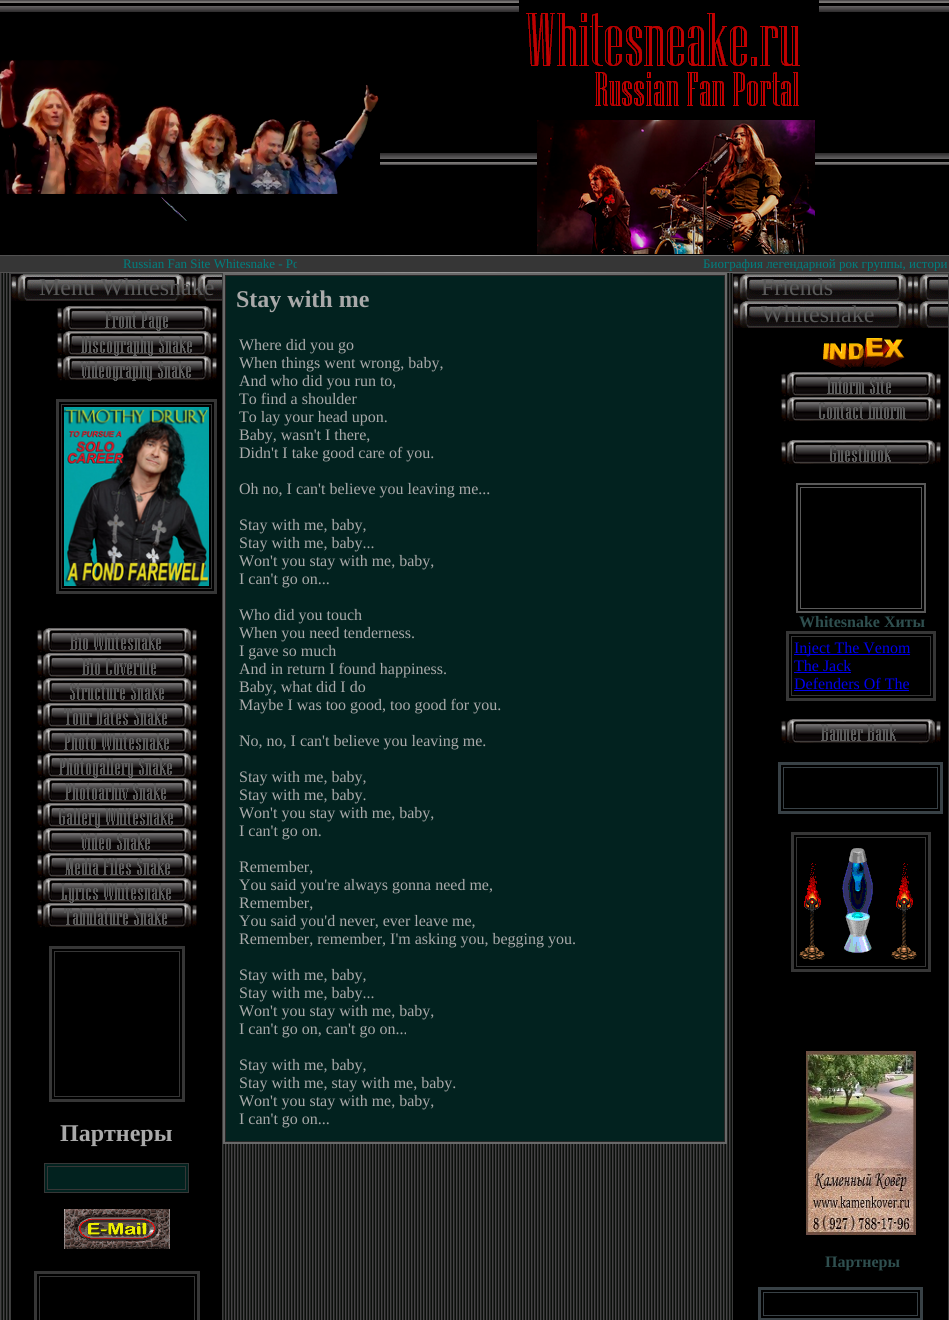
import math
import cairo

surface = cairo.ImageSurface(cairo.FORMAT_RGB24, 949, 1320)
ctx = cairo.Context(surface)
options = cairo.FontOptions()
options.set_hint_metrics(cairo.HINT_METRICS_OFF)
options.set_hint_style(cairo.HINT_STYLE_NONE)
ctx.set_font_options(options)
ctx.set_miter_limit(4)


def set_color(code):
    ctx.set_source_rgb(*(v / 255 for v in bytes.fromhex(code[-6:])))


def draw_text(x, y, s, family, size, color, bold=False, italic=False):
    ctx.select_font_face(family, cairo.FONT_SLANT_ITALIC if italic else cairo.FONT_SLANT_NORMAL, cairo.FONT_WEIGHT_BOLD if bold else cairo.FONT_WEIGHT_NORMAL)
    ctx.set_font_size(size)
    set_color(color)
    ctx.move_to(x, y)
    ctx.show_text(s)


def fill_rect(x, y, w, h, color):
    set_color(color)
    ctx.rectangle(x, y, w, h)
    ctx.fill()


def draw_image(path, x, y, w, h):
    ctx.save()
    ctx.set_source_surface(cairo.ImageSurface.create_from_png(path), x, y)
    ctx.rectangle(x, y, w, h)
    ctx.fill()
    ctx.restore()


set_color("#ffffff")
ctx.paint()
draw_image("assets/img1.png", 0, 273, 732, 1047)
fill_rect(0, 165, 949, 90, "#000000")
draw_image("assets/img2.png", 0, 0, 949, 165)
draw_image("assets/img3.png", 0, 60, 380, 134)
draw_image("assets/img4.png", 519, 0, 300, 106)
draw_image("assets/img5.png", 537, 120, 278, 134)
draw_image("assets/img6.png", 161, 197, 26, 24)
draw_image("assets/img7.png", 0, 255, 949, 18)
fill_rect(0, 256, 949, 16, "#363636")
ctx.save()
ctx.rectangle(0, 256, 297, 16)
ctx.clip()
draw_text(123, 268, "Russian Fan Site Whitesnake - Ро", "Liberation Serif", 13, "#008080")
ctx.restore()
draw_text(703, 268, "Биография легендарной рок группы, истори", "Liberation Serif", 13, "#008080")
ctx.rectangle(10.5, 273.5, 212, 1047)
set_color("#3c3c3c")
ctx.set_line_width(1)
ctx.stroke()
draw_image("assets/img8.png", 11, 274, 211, 27)
draw_text(39, 295, "Menu Whitesnake", "Liberation Serif", 24, "#595959")
fill_rect(11, 301, 211, 1019, "#000000")
draw_image("assets/img9.png", 57, 306, 160, 25)
draw_image("assets/img10.png", 57, 331, 160, 25)
draw_image("assets/img11.png", 57, 356, 160, 25)
ctx.rectangle(57.5, 400.5, 158, 192)
set_color("#363636")
ctx.set_line_width(3)
ctx.stroke()
ctx.rectangle(61.5, 404.5, 150, 184)
ctx.set_line_width(1)
ctx.stroke()
draw_image("assets/img12.png", 64, 407, 145, 179)
draw_image("assets/img13.png", 37, 628, 160, 25)
draw_image("assets/img14.png", 37, 653, 160, 25)
draw_image("assets/img15.png", 37, 678, 160, 25)
draw_image("assets/img16.png", 37, 703, 160, 25)
draw_image("assets/img17.png", 37, 728, 160, 25)
draw_image("assets/img18.png", 37, 753, 160, 25)
draw_image("assets/img19.png", 37, 778, 160, 25)
draw_image("assets/img20.png", 37, 803, 160, 25)
draw_image("assets/img21.png", 37, 828, 160, 25)
draw_image("assets/img22.png", 37, 853, 160, 25)
draw_image("assets/img23.png", 37, 878, 160, 25)
draw_image("assets/img24.png", 37, 903, 160, 25)
ctx.rectangle(50.5, 947.5, 133, 153)
ctx.set_line_width(3)
ctx.stroke()
ctx.rectangle(54.5, 951.5, 125, 145)
ctx.set_line_width(1)
ctx.stroke()
draw_text(60, 1141, "Партнеры", "Liberation Serif", 24, "#a9a9a9", bold=True)
set_color("#02221f")
ctx.rectangle(44.5, 1163.5, 144, 29)
ctx.fill_preserve()
set_color("#363636")
ctx.stroke()
ctx.rectangle(47.5, 1166.5, 138, 23)
ctx.stroke()
draw_image("assets/img25.png", 64, 1209, 106, 40)
ctx.rectangle(35.5, 1272.5, 163, 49)
ctx.set_line_width(3)
ctx.stroke()
ctx.rectangle(39.5, 1276.5, 155, 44)
ctx.set_line_width(1)
ctx.stroke()
ctx.rectangle(224, 274, 502, 869)
set_color("#696969")
ctx.set_line_width(2)
ctx.stroke()
set_color("#02221f")
ctx.rectangle(225.5, 275.5, 499, 866)
ctx.fill_preserve()
set_color("#262626")
ctx.set_line_width(1)
ctx.stroke()
draw_text(236, 307, "Stay with me", "Liberation Serif", 24, "#a9a9a9", bold=True)
draw_text(239, 350, "Where did you go", "Liberation Serif", 16, "#a9a9a9")
draw_text(239, 368, "When things went wrong, baby,", "Liberation Serif", 16, "#a9a9a9")
draw_text(239, 386, "And who did you run to,", "Liberation Serif", 16, "#a9a9a9")
draw_text(239, 404, "To find a shoulder", "Liberation Serif", 16, "#a9a9a9")
draw_text(239, 422, "To lay your head upon.", "Liberation Serif", 16, "#a9a9a9")
draw_text(239, 440, "Baby, wasn't I there,", "Liberation Serif", 16, "#a9a9a9")
draw_text(239, 458, "Didn't I take good care of you.", "Liberation Serif", 16, "#a9a9a9")
draw_text(239, 494, "Oh no, I can't believe you leaving me...", "Liberation Serif", 16, "#a9a9a9")
draw_text(239, 530, "Stay with me, baby,", "Liberation Serif", 16, "#a9a9a9")
draw_text(239, 548, "Stay with me, baby...", "Liberation Serif", 16, "#a9a9a9")
draw_text(239, 566, "Won't you stay with me, baby,", "Liberation Serif", 16, "#a9a9a9")
draw_text(239, 584, "I can't go on...", "Liberation Serif", 16, "#a9a9a9")
draw_text(239, 620, "Who did you touch", "Liberation Serif", 16, "#a9a9a9")
draw_text(239, 638, "When you need tenderness.", "Liberation Serif", 16, "#a9a9a9")
draw_text(239, 656, "I gave so much", "Liberation Serif", 16, "#a9a9a9")
draw_text(239, 674, "And in return I found happiness.", "Liberation Serif", 16, "#a9a9a9")
draw_text(239, 692, "Baby, what did I do", "Liberation Serif", 16, "#a9a9a9")
draw_text(239, 710, "Maybe I was too good, too good for you.", "Liberation Serif", 16, "#a9a9a9")
draw_text(239, 746, "No, no, I can't believe you leaving me.", "Liberation Serif", 16, "#a9a9a9")
draw_text(239, 782, "Stay with me, baby,", "Liberation Serif", 16, "#a9a9a9")
draw_text(239, 800, "Stay with me, baby.", "Liberation Serif", 16, "#a9a9a9")
draw_text(239, 818, "Won't you stay with me, baby,", "Liberation Serif", 16, "#a9a9a9")
draw_text(239, 836, "I can't go on.", "Liberation Serif", 16, "#a9a9a9")
draw_text(239, 872, "Remember,", "Liberation Serif", 16, "#a9a9a9")
draw_text(239, 890, "You said you're always gonna need me,", "Liberation Serif", 16, "#a9a9a9")
draw_text(239, 908, "Remember,", "Liberation Serif", 16, "#a9a9a9")
draw_text(239, 926, "You said you'd never, ever leave me,", "Liberation Serif", 16, "#a9a9a9")
draw_text(239, 944, "Remember, remember, I'm asking you, begging you.", "Liberation Serif", 16, "#a9a9a9")
draw_text(239, 980, "Stay with me, baby,", "Liberation Serif", 16, "#a9a9a9")
draw_text(239, 998, "Stay with me, baby...", "Liberation Serif", 16, "#a9a9a9")
draw_text(239, 1016, "Won't you stay with me, baby,", "Liberation Serif", 16, "#a9a9a9")
draw_text(239, 1034, "I can't go on, can't go on...", "Liberation Serif", 16, "#a9a9a9")
draw_text(239, 1070, "Stay with me, baby,", "Liberation Serif", 16, "#a9a9a9")
draw_text(239, 1088, "Stay with me, stay with me, baby.", "Liberation Serif", 16, "#a9a9a9")
draw_text(239, 1106, "Won't you stay with me, baby,", "Liberation Serif", 16, "#a9a9a9")
draw_text(239, 1124, "I can't go on...", "Liberation Serif", 16, "#a9a9a9")
ctx.rectangle(732.5, 273.5, 216, 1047)
set_color("#3c3c3c")
ctx.stroke()
draw_image("assets/img26.png", 733, 274, 215, 54)
draw_text(761, 295, "Friends", "Liberation Serif", 24, "#595959")
draw_text(761, 322, "Whitesnake", "Liberation Serif", 24, "#595959")
fill_rect(733, 328, 215, 992, "#000000")
draw_image("assets/img27.png", 823, 338, 82, 30)
draw_image("assets/img28.png", 781, 372, 160, 25)
draw_image("assets/img29.png", 781, 397, 160, 25)
draw_image("assets/img30.png", 781, 440, 160, 25)
ctx.rectangle(797, 484, 128, 128)
set_color("#595959")
ctx.set_line_width(2)
ctx.stroke()
ctx.rectangle(800.5, 487.5, 121, 121)
ctx.set_line_width(1)
ctx.stroke()
draw_text(799, 627, "Whitesnake Хиты", "Liberation Serif", 16, "#2f4f4f", bold=True)
ctx.rectangle(787.5, 632.5, 147, 67)
set_color("#363636")
ctx.set_line_width(3)
ctx.stroke()
ctx.rectangle(791.5, 636.5, 139, 59)
ctx.set_line_width(1)
ctx.stroke()
fill_rect(794, 654, 116, 1, "#0000ee")
draw_text(794, 653, "Inject The Venom", "Liberation Serif", 16, "#0000ee")
draw_text(794, 671, "The Jack", "Liberation Serif", 16, "#0000ee")
fill_rect(794, 672, 57, 1, "#0000ee")
draw_text(794, 689, "Defenders Of The", "Liberation Serif", 16, "#0000ee")
fill_rect(794, 690, 115, 1, "#0000ee")
draw_image("assets/img31.png", 781, 719, 160, 25)
ctx.rectangle(779.5, 763.5, 162, 49)
set_color("#384146")
ctx.set_line_width(3)
ctx.stroke()
ctx.rectangle(783.5, 767.5, 154, 41)
ctx.set_line_width(1)
ctx.stroke()
ctx.rectangle(792.5, 833.5, 137, 137)
set_color("#363636")
ctx.set_line_width(3)
ctx.stroke()
ctx.rectangle(796.5, 837.5, 129, 129)
ctx.set_line_width(1)
ctx.stroke()
draw_image("assets/img32.png", 799, 863, 26, 97)
draw_image("assets/img33.png", 842, 848, 31, 105)
draw_image("assets/img32.png", 891, 863, 26, 97)
draw_image("assets/img34.png", 806, 1051, 110, 184)
draw_text(825, 1267, "Партнеры", "Liberation Serif", 16, "#2f4f4f", bold=True)
ctx.rectangle(759.5, 1288.5, 162, 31)
set_color("#384146")
ctx.set_line_width(3)
ctx.stroke()
ctx.rectangle(763.5, 1292.5, 154, 23)
ctx.set_line_width(1)
ctx.stroke()
surface.write_to_png("output.png")
